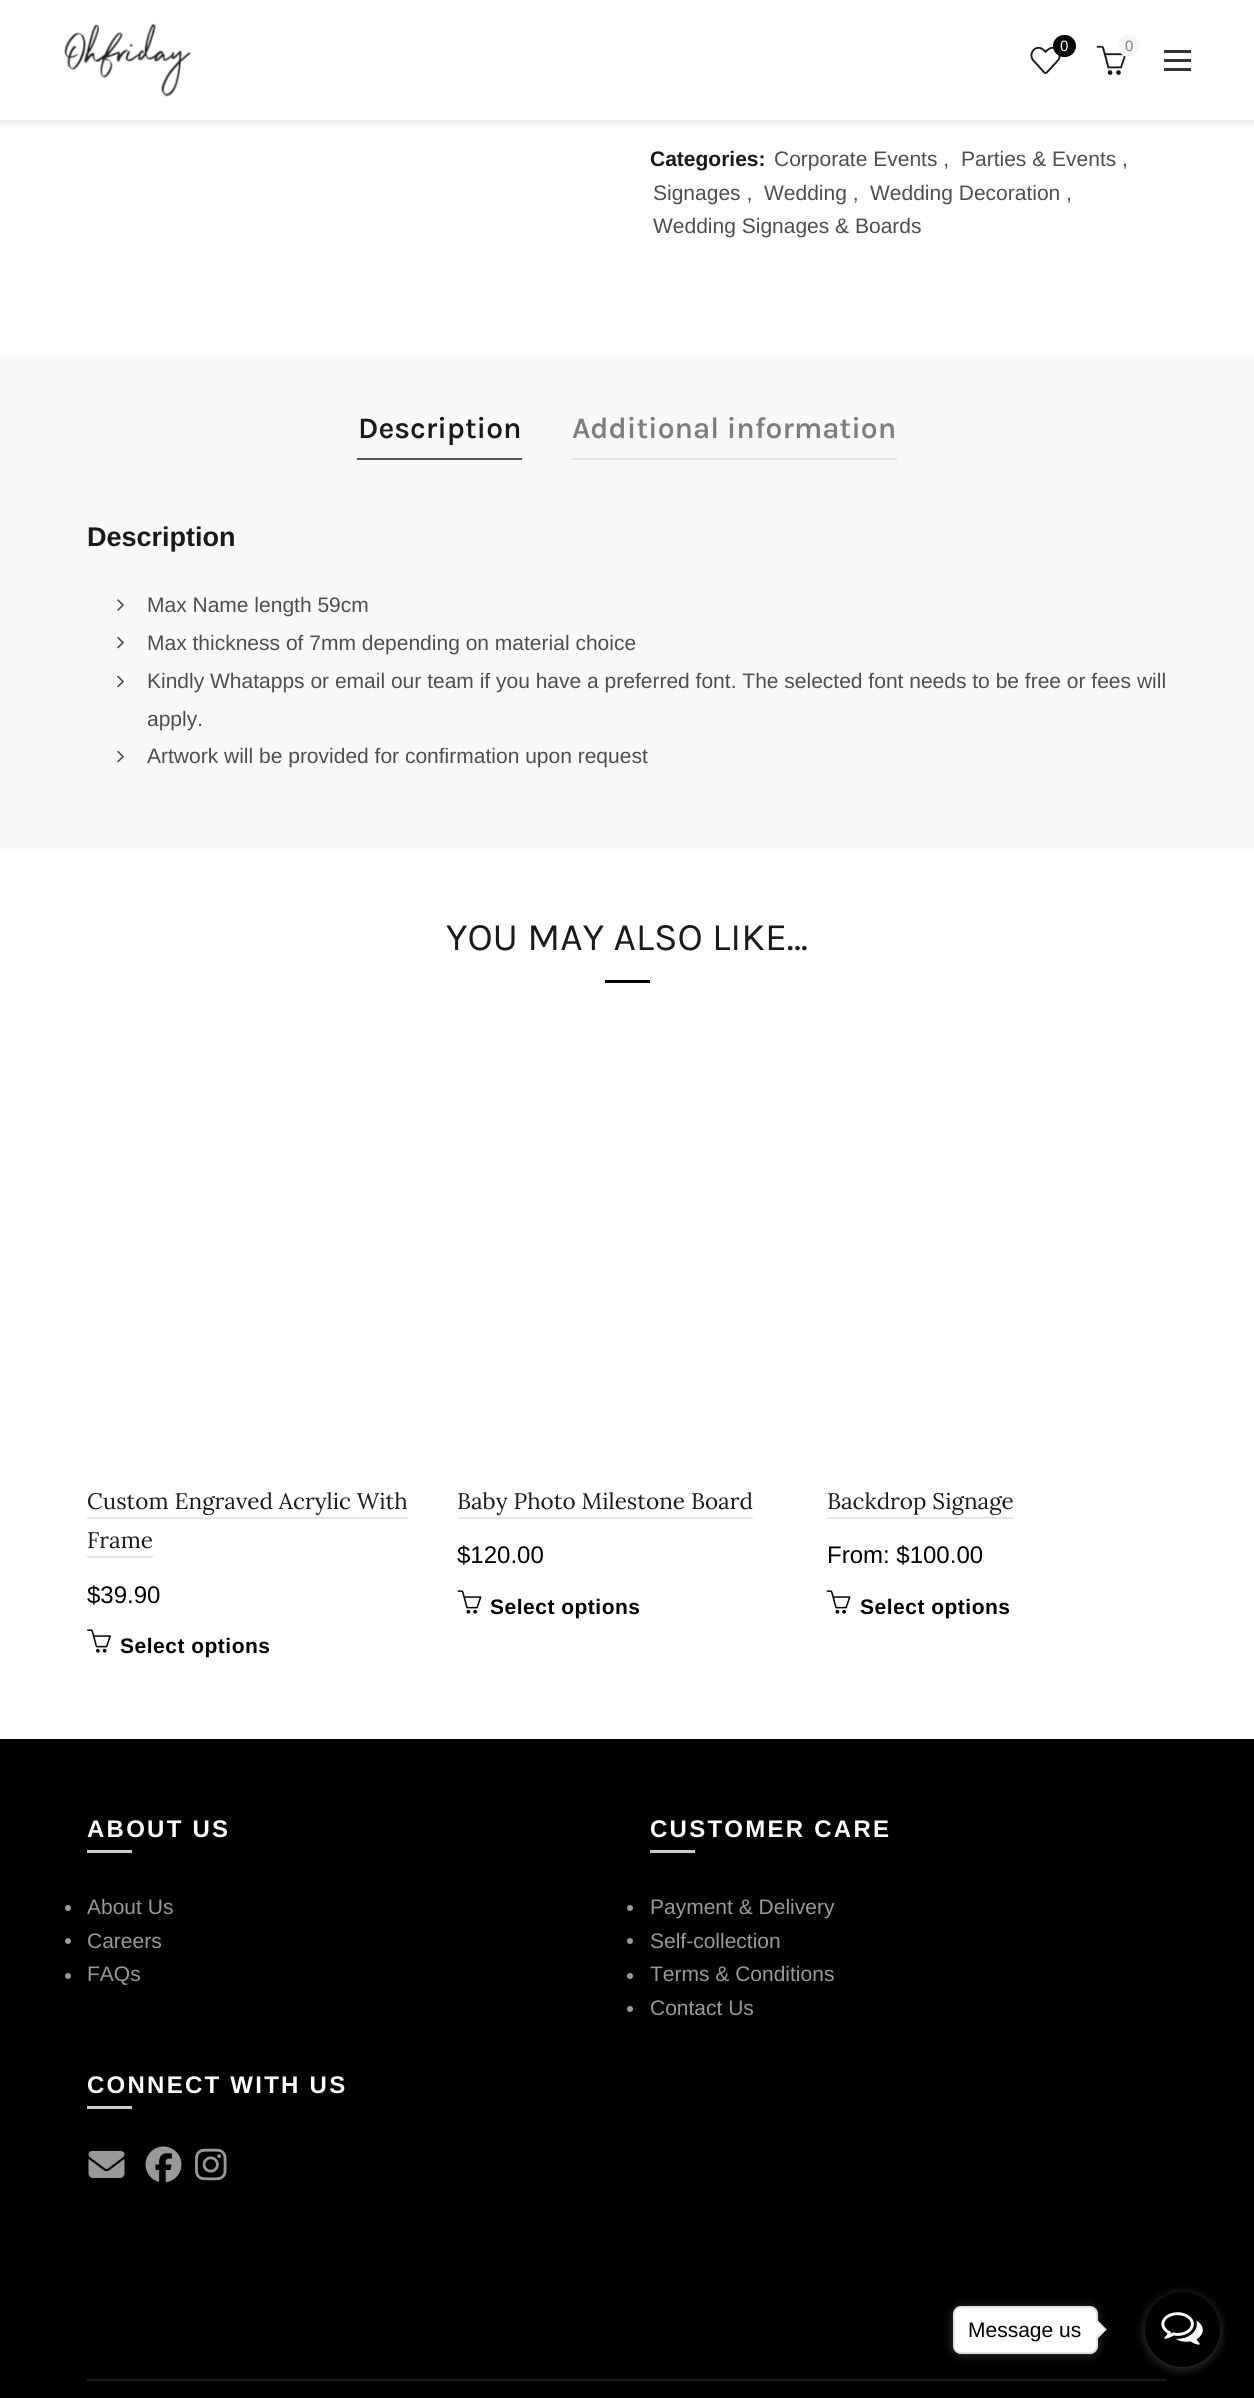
import math
import cairo

surface = cairo.ImageSurface(cairo.FORMAT_RGB24, 1254, 2398)
ctx = cairo.Context(surface)
options = cairo.FontOptions()
options.set_hint_metrics(cairo.HINT_METRICS_OFF)
options.set_hint_style(cairo.HINT_STYLE_NONE)
ctx.set_font_options(options)
ctx.set_miter_limit(4)


def set_color(code):
    ctx.set_source_rgb(*(v / 255 for v in bytes.fromhex(code[-6:])))


def draw_text(x, y, s, family, size, color, bold=False, italic=False):
    ctx.select_font_face(family, cairo.FONT_SLANT_ITALIC if italic else cairo.FONT_SLANT_NORMAL, cairo.FONT_WEIGHT_BOLD if bold else cairo.FONT_WEIGHT_NORMAL)
    ctx.set_font_size(size)
    set_color(color)
    ctx.move_to(x, y)
    ctx.show_text(s)


def draw_spaced(x, y, s, letter, word):
    ctx.move_to(x, y)
    for ch in s:
        ctx.show_text(ch)
        ctx.rel_move_to(letter + word * (ch == ' '), 0)


def fill_rect(x, y, w, h, color):
    set_color(color)
    ctx.rectangle(x, y, w, h)
    ctx.fill()


def rounded_rect(x, y, w, h, r):
    ctx.new_sub_path()
    for i, (u, v) in enumerate([(x + w - r, y + h - r), (x + r, y + h - r), (x + r, y + r), (x + w - r, y + r)]):
        ctx.arc(u, v, r, i * math.pi / 2, (i + 1) * math.pi / 2)
    ctx.close_path()


def draw_shadow(x, y, w, h, r, blur, alpha):
    ctx.push_group_with_content(cairo.CONTENT_ALPHA)
    ctx.set_operator(cairo.OPERATOR_SOURCE)
    for i in range(15, -16, -2):
        e = blur * i / 6
        if min(w, h) + 2 * e > 0:
            ctx.set_source_rgba(0, 0, 0, alpha * math.erfc((i - 1) / 8.5) / 2)
            rounded_rect(x - e, y - e, w + 2 * e, h + 2 * e, max(0, min(r + e + blur * .6, min(w, h) / 2 + e)))
            ctx.fill()
    ctx.mask(ctx.pop_group())


def draw_image(path, x, y, w, h):
    ctx.save()
    ctx.set_source_surface(cairo.ImageSurface.create_from_png(path), x, y)
    ctx.rectangle(x, y, w, h)
    ctx.fill()
    ctx.restore()


set_color("#ffffff")
ctx.paint()
set_color("#bebebe")
draw_shadow(0, 2, 1254, 120, 0, 4, 0.5)
fill_rect(0, 0, 1254, 120, "#ffffff")
draw_image("assets/img1.png", 64, 23, 127, 74)
draw_image("assets/img2.png", 1030, 46, 31, 28)
set_color("#000000")
rounded_rect(1053, 35, 23, 22, 11)
ctx.fill()
draw_text(1060, 51, "0", "Liberation Sans", 15, "#ffffff")
draw_image("assets/img3.png", 1096, 45, 30, 30)
set_color("#f7f7f7")
ctx.arc(1129, 46, 11, 0, 2 * math.pi)
ctx.fill()
draw_text(1125, 51, "0", "Liberation Sans", 15, "#7d7d7d")
fill_rect(1164, 59, 27, 3, "#333333")
fill_rect(1164, 50, 27, 3, "#333333")
fill_rect(1164, 68, 27, 3, "#333333")
draw_text(650, 166, "Categories:", "Liberation Sans", 21, "#1b1919", bold=True)
draw_text(774, 166, "Corporate Events ,", "Liberation Sans", 21, "#4e4e4e")
draw_text(961, 166, "Parties & Events ,", "Liberation Sans", 21, "#4e4e4e")
draw_text(653, 200, "Signages ,", "Liberation Sans", 21, "#4e4e4e")
draw_text(764, 200, "Wedding ,", "Liberation Sans", 21, "#4e4e4e")
draw_text(870, 200, "Wedding Decoration ,", "Liberation Sans", 21, "#4e4e4e")
draw_text(653, 233, "Wedding Signages & Boards", "Liberation Sans", 21, "#4e4e4e")
fill_rect(0, 356, 1254, 495, "#f9f9f9")
fill_rect(357, 458, 165, 2, "#545454")
draw_text(358, 438, "Description", "Karla SemiBold", 30, "#1b1919")
fill_rect(572, 458, 325, 2, "#e4e4e4")
draw_text(572, 438, "Additional information", "Karla SemiBold", 30, "#7d7d7d")
draw_text(87, 546, "Description", "Liberation Sans", 27, "#1b1919", bold=True)
draw_image("assets/img4.png", 117, 599, 7, 12)
draw_text(147, 612, "Max Name length 59cm", "Liberation Sans", 21, "#4e4e4e")
draw_image("assets/img5.png", 117, 636, 7, 13)
draw_text(147, 650, "Max thickness of 7mm depending on material choice", "Liberation Sans", 21, "#4e4e4e")
draw_image("assets/img5.png", 117, 675, 7, 13)
draw_text(147, 688, "Kindly Whatapps or email our team if you have a preferred font. The selected font needs to be free or fees will", "Liberation Sans", 21, "#4e4e4e")
draw_text(147, 726, "apply.", "Liberation Sans", 21, "#4e4e4e")
draw_image("assets/img5.png", 117, 750, 7, 13)
draw_text(147, 763, "Artwork will be provided for confirmation upon request", "Liberation Sans", 21, "#4e4e4e")
draw_text(446, 950, "YOU MAY ALSO LIKE…", "Karla", 39, "#1b1919")
fill_rect(605, 980, 45, 3, "#000000")
draw_text(87, 1509, "Custom Engraved Acrylic With", "Lora", 22.5, "#1b1919")
fill_rect(87, 1517, 321, 2, "#e6e6e6")
draw_text(87, 1548, "Frame", "Lora", 22.5, "#1b1919")
fill_rect(87, 1556, 66, 2, "#e6e6e6")
draw_text(87, 1603, "$39.90", "Liberation Sans", 24, "#000000")
draw_image("assets/img6.png", 87, 1629, 24, 24)
ctx.select_font_face("Liberation Sans", cairo.FONT_SLANT_NORMAL, cairo.FONT_WEIGHT_BOLD)
ctx.set_font_size(21)
draw_spaced(120, 1653, "Select options", 0.5, 0)
draw_text(457, 1509, "Baby Photo Milestone Board", "Lora", 22.5, "#1b1919")
fill_rect(458, 1517, 295, 2, "#e6e6e6")
draw_text(457, 1563, "$120.00", "Liberation Sans", 24, "#000000")
draw_image("assets/img7.png", 457, 1590, 25, 24)
ctx.select_font_face("Liberation Sans", cairo.FONT_SLANT_NORMAL, cairo.FONT_WEIGHT_BOLD)
ctx.set_font_size(21)
draw_spaced(490, 1614, "Select options", 0.5, 0)
draw_text(827, 1509, "Backdrop Signage", "Lora", 22.5, "#1b1919")
fill_rect(827, 1517, 187, 2, "#e6e6e6")
draw_text(827, 1563, "From: $100.00", "Liberation Sans", 24, "#000000")
draw_image("assets/img7.png", 826, 1590, 25, 24)
ctx.select_font_face("Liberation Sans", cairo.FONT_SLANT_NORMAL, cairo.FONT_WEIGHT_BOLD)
ctx.set_font_size(21)
draw_spaced(860, 1614, "Select options", 0.5, 0)
fill_rect(0, 1739, 1254, 659, "#000000")
ctx.set_font_size(24)
set_color("#ffffff")
draw_spaced(87, 1837, "ABOUT US", 2.25, 0)
fill_rect(87, 1850, 45, 3, "#cccccc")
set_color("#999999")
ctx.new_path()
ctx.arc(68, 1908, 3, 0, 2 * math.pi)
ctx.fill()
draw_text(87, 1914, "About Us", "Liberation Sans", 21, "#999999")
ctx.new_path()
ctx.arc(68, 1941, 3, 0, 2 * math.pi)
ctx.fill()
draw_text(87, 1948, "Careers", "Liberation Sans", 21, "#999999")
ctx.new_path()
ctx.arc(68, 1976, 3, 0, 2 * math.pi)
ctx.fill()
draw_text(87, 1981, "FAQs", "Liberation Sans", 21, "#999999")
ctx.select_font_face("Liberation Sans", cairo.FONT_SLANT_NORMAL, cairo.FONT_WEIGHT_BOLD)
ctx.set_font_size(24)
set_color("#ffffff")
draw_spaced(650, 1837, "CUSTOMER CARE", 2.25, 0)
fill_rect(650, 1850, 45, 3, "#cccccc")
set_color("#999999")
ctx.new_path()
ctx.arc(630, 1908, 3, 0, 2 * math.pi)
ctx.fill()
draw_text(650, 1914, "Payment & Delivery", "Liberation Sans", 21, "#999999")
ctx.new_path()
ctx.arc(630, 1941, 3, 0, 2 * math.pi)
ctx.fill()
draw_text(650, 1948, "Self-collection", "Liberation Sans", 21, "#999999")
ctx.new_path()
ctx.arc(630, 1976, 3, 0, 2 * math.pi)
ctx.fill()
draw_text(650, 1981, "Terms & Conditions", "Liberation Sans", 21, "#999999")
ctx.new_path()
ctx.arc(630, 2009, 3, 0, 2 * math.pi)
ctx.fill()
draw_text(650, 2015, "Contact Us", "Liberation Sans", 21, "#999999")
ctx.select_font_face("Liberation Sans", cairo.FONT_SLANT_NORMAL, cairo.FONT_WEIGHT_BOLD)
ctx.set_font_size(24)
set_color("#ffffff")
draw_spaced(87, 2093, "CONNECT WITH US", 2.25, 0)
fill_rect(87, 2106, 45, 3, "#cccccc")
draw_image("assets/img8.png", 88, 2151, 37, 27)
draw_image("assets/img9.png", 145, 2146, 37, 37)
draw_image("assets/img10.png", 195, 2148, 32, 33)
fill_rect(87, 2379, 1080, 2, "#1a1a1a")
set_color("#888888")
draw_shadow(953, 2307, 145, 48, 8, 5, 0.4)
set_color("#ffffff")
rounded_rect(954, 2307, 143, 46, 7)
ctx.fill_preserve()
set_color("#e2e2e2")
ctx.stroke()
draw_text(968, 2337, "Message us", "Liberation Sans", 21, "#000000")
set_color("#ffffff")
ctx.new_path()
ctx.move_to(1089.5, 2329.5)
ctx.line_to(1098, 2321)
ctx.line_to(1106.5, 2329.5)
ctx.line_to(1098, 2338)
ctx.close_path()
ctx.fill()
set_color("#e2e2e2")
ctx.new_path()
ctx.move_to(1097, 2322)
ctx.line_to(1098, 2321)
ctx.line_to(1106.5, 2329.5)
ctx.line_to(1105.5, 2330.5)
ctx.close_path()
ctx.fill()
ctx.new_path()
ctx.move_to(1097, 2337)
ctx.line_to(1105.5, 2328.5)
ctx.line_to(1106.5, 2329.5)
ctx.line_to(1098, 2338)
ctx.close_path()
ctx.fill()
set_color("#888888")
draw_shadow(1145, 2294, 75, 75, 37.5, 5, 0.4)
set_color("#000000")
ctx.arc(1182.5, 2329.5, 37.5, 0, 2 * math.pi)
ctx.fill()
draw_image("assets/img11.png", 1161, 2312, 42, 33)
surface.write_to_png("output.png")
